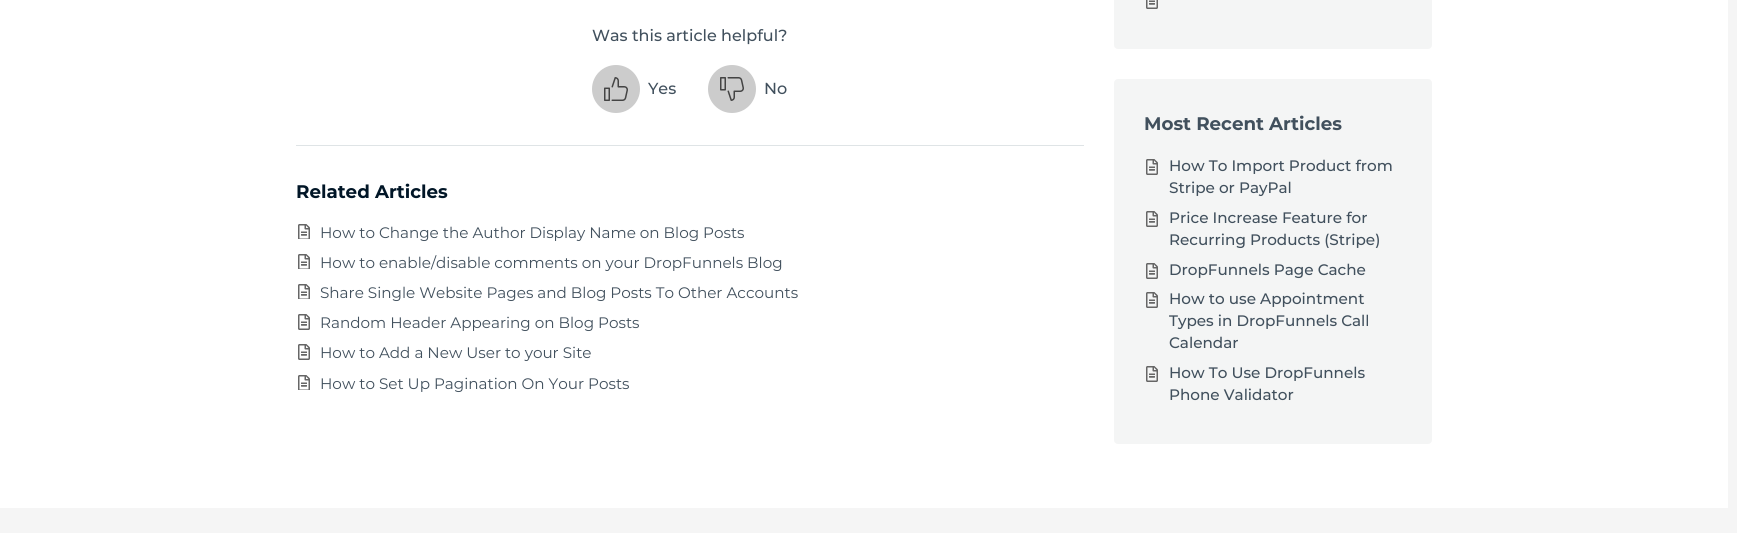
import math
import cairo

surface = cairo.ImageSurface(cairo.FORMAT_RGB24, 1737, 533)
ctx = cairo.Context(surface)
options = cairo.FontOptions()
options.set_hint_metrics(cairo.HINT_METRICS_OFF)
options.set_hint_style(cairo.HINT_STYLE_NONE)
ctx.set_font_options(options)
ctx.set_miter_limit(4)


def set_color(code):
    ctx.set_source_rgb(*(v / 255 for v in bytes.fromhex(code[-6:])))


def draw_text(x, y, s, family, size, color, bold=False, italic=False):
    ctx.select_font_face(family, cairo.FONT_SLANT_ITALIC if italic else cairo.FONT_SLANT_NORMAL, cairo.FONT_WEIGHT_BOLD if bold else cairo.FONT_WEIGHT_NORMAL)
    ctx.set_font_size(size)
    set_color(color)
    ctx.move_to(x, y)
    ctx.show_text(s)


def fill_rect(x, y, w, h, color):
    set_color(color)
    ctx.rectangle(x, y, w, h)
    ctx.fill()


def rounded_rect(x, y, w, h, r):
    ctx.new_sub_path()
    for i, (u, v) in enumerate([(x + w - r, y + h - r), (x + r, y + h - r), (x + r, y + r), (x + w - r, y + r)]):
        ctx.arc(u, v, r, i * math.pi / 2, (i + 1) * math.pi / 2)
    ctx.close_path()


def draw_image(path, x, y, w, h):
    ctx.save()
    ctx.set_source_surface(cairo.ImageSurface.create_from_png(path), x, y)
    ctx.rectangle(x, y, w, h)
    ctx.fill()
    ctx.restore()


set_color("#f5f5f5")
ctx.paint()
fill_rect(0, 0, 1728, 508, "#ffffff")
fill_rect(296, 145, 788, 1, "#dfe4e6")
draw_text(592, 41, "Was this article helpful?", "Montserrat Medium", 16, "#41505d")
set_color("#cccccc")
ctx.new_path()
ctx.arc(616, 89, 24, 0, 2 * math.pi)
ctx.fill()
draw_image("assets/img1.png", 604, 77, 24, 24)
draw_text(648, 94, "Yes", "Montserrat Medium", 16, "#41505d")
set_color("#cccccc")
ctx.new_path()
ctx.arc(732, 89, 24, 0, 2 * math.pi)
ctx.fill()
draw_image("assets/img2.png", 720, 77, 24, 24)
draw_text(764, 94, "No", "Montserrat Medium", 16, "#41505d")
draw_text(296, 198, "Related Articles", "Montserrat", 18.25, "#011627", bold=True)
draw_image("assets/img3.png", 298, 224, 12, 15)
draw_text(320, 238, "How to Change the Author Display Name on Blog Posts", "Montserrat", 15.2, "#41505d")
draw_image("assets/img3.png", 298, 254, 12, 15)
draw_text(320, 268, "How to enable/disable comments on your DropFunnels Blog", "Montserrat", 15.2, "#41505d")
draw_image("assets/img3.png", 298, 284, 12, 15)
draw_text(320, 298, "Share Single Website Pages and Blog Posts To Other Accounts", "Montserrat", 15.2, "#41505d")
draw_image("assets/img4.png", 298, 314, 12, 16)
draw_text(320, 328, "Random Header Appearing on Blog Posts", "Montserrat", 15.2, "#41505d")
draw_image("assets/img4.png", 298, 344, 12, 16)
draw_text(320, 358, "How to Add a New User to your Site", "Montserrat", 15.2, "#41505d")
draw_image("assets/img3.png", 298, 375, 12, 15)
draw_text(320, 389, "How to Set Up Pagination On Your Posts", "Montserrat", 15.2, "#41505d")
set_color("#f4f5f5")
rounded_rect(1114, -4, 318, 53, 4)
ctx.fill()
draw_image("assets/img5.png", 1146, 0, 12, 9)
rounded_rect(1114, 79, 318, 365, 4)
ctx.fill()
draw_text(1144, 130, "Most Recent Articles", "Montserrat", 18.25, "#41505d", bold=True)
draw_image("assets/img6.png", 1146, 159, 12, 16)
draw_text(1169, 171, "How To Import Product from", "Montserrat Medium", 15.2, "#41505d")
draw_text(1169, 193, "Stripe or PayPal", "Montserrat Medium", 15.2, "#41505d")
draw_image("assets/img6.png", 1146, 211, 12, 16)
draw_text(1169, 223, "Price Increase Feature for", "Montserrat Medium", 15.2, "#41505d")
draw_text(1169, 245, "Recurring Products (Stripe)", "Montserrat Medium", 15.2, "#41505d")
draw_image("assets/img6.png", 1146, 263, 12, 16)
draw_text(1169, 275, "DropFunnels Page Cache", "Montserrat Medium", 15.2, "#41505d")
draw_image("assets/img6.png", 1146, 292, 12, 16)
draw_text(1169, 304, "How to use Appointment", "Montserrat Medium", 15.2, "#41505d")
draw_text(1169, 326, "Types in DropFunnels Call", "Montserrat Medium", 15.2, "#41505d")
draw_text(1169, 348, "Calendar", "Montserrat Medium", 15.2, "#41505d")
draw_image("assets/img6.png", 1146, 366, 12, 16)
draw_text(1169, 378, "How To Use DropFunnels", "Montserrat Medium", 15.2, "#41505d")
draw_text(1169, 400, "Phone Validator", "Montserrat Medium", 15.2, "#41505d")
surface.write_to_png("output.png")
